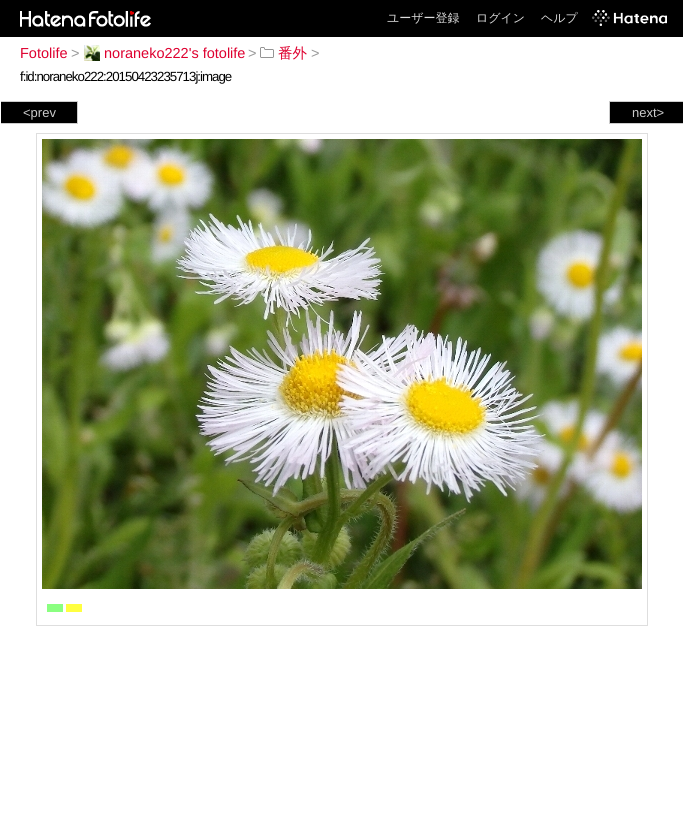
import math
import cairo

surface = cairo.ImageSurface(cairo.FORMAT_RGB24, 683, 830)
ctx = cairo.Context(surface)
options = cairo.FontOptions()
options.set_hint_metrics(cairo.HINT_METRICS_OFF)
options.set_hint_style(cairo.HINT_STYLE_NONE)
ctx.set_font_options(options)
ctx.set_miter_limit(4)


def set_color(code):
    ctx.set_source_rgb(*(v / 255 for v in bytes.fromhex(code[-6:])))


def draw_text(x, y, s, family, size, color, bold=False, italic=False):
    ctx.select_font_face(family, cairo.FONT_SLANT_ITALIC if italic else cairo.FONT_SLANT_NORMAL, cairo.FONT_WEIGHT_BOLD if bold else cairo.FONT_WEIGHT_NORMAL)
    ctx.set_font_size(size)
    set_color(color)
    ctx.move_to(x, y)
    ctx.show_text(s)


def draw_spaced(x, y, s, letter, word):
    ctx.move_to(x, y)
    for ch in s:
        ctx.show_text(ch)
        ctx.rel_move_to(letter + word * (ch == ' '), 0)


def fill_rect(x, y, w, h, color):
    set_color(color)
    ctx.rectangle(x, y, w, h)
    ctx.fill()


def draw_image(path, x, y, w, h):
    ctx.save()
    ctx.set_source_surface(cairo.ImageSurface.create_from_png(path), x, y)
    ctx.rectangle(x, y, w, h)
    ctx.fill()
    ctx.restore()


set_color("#ffffff")
ctx.paint()
fill_rect(0, 0, 683, 37, "#000000")
draw_image("assets/img1.png", 20, 11, 66, 16)
draw_image("assets/img2.png", 89, 11, 62, 16)
draw_text(387, 22, "ユーザー登録", "WenQuanYi Zen Hei Medium", 12, "#dddddd")
draw_text(476, 22, "ログイン", "WenQuanYi Zen Hei Medium", 12, "#dddddd")
draw_text(541, 22, "ヘルプ", "WenQuanYi Zen Hei Medium", 12, "#dddddd")
draw_image("assets/img3.png", 592, 10, 75, 16)
draw_text(20, 58, "Fotolife", "Liberation Sans", 14.5, "#de002f")
draw_text(71, 58, ">", "Liberation Sans", 14.5, "#999999")
draw_image("assets/img4.png", 84, 45, 16, 16)
draw_text(104, 58, "noraneko222's fotolife", "Liberation Sans", 14.5, "#de002f")
draw_text(248, 58, ">", "Liberation Sans", 14.5, "#999999")
draw_image("assets/img5.png", 260, 47, 14, 11)
draw_text(278, 58, "番外", "WenQuanYi Zen Hei Medium", 14.5, "#de002f")
draw_text(311, 58, ">", "Liberation Sans", 14.5, "#999999")
ctx.set_font_size(13.3)
set_color("#000000")
draw_spaced(20, 81, "f:id:noraneko222:20150423235713j:image", -1, 0)
fill_rect(1, 102, 76, 21, "#000000")
fill_rect(1, 101, 77, 1, "#cccccc")
fill_rect(77, 101, 1, 23, "#cccccc")
fill_rect(1, 123, 77, 1, "#cccccc")
draw_text(23, 117, "<prev", "Liberation Sans", 13, "#cccccc")
fill_rect(610, 102, 73, 21, "#000000")
fill_rect(609, 101, 74, 1, "#cccccc")
fill_rect(609, 123, 74, 1, "#cccccc")
fill_rect(609, 101, 1, 23, "#cccccc")
draw_text(632, 117, "next>", "Liberation Sans", 13, "#cccccc")
ctx.rectangle(36.5, 133.5, 611, 492)
set_color("#dedede")
ctx.set_line_width(1)
ctx.stroke()
draw_image("assets/img6.png", 42, 139, 600, 450)
fill_rect(47, 604, 16, 8, "#8aff80")
fill_rect(66, 604, 16, 8, "#ffff40")
surface.write_to_png("output.png")
